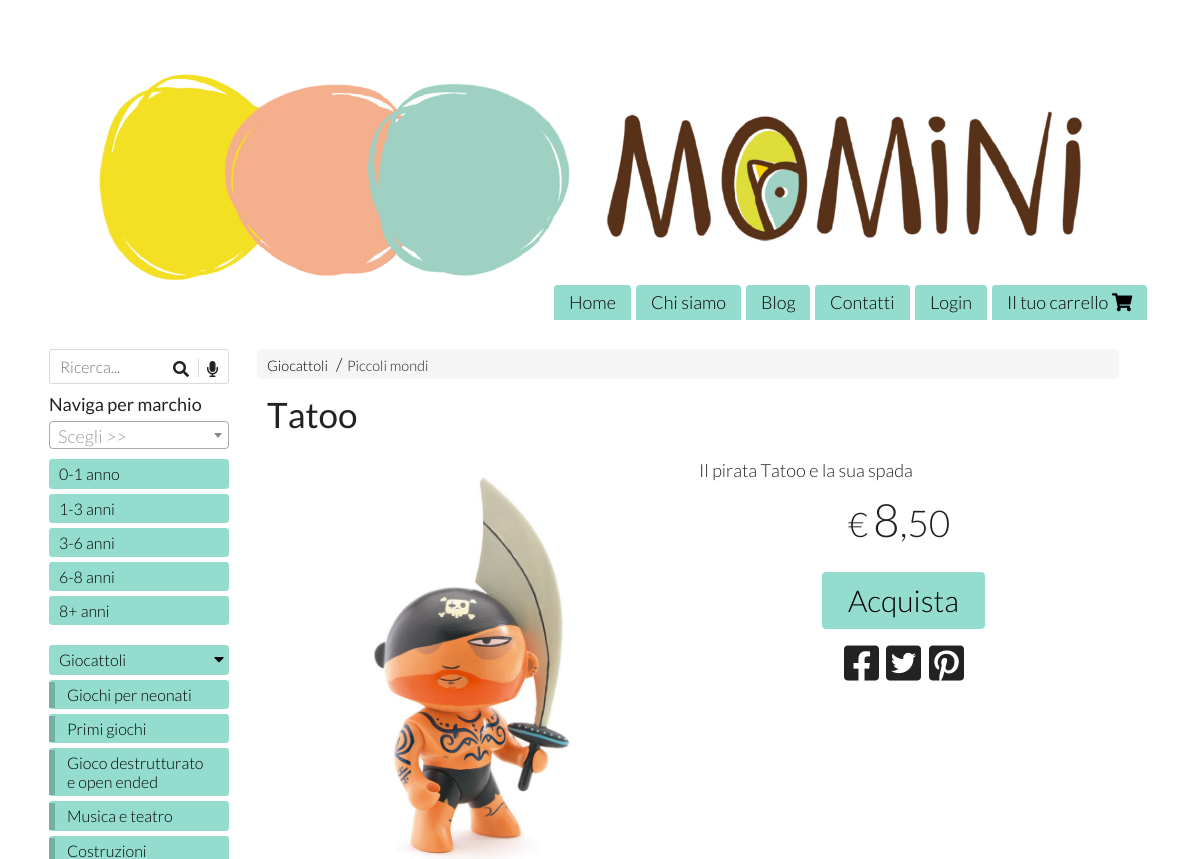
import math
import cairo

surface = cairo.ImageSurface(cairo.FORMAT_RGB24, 1196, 859)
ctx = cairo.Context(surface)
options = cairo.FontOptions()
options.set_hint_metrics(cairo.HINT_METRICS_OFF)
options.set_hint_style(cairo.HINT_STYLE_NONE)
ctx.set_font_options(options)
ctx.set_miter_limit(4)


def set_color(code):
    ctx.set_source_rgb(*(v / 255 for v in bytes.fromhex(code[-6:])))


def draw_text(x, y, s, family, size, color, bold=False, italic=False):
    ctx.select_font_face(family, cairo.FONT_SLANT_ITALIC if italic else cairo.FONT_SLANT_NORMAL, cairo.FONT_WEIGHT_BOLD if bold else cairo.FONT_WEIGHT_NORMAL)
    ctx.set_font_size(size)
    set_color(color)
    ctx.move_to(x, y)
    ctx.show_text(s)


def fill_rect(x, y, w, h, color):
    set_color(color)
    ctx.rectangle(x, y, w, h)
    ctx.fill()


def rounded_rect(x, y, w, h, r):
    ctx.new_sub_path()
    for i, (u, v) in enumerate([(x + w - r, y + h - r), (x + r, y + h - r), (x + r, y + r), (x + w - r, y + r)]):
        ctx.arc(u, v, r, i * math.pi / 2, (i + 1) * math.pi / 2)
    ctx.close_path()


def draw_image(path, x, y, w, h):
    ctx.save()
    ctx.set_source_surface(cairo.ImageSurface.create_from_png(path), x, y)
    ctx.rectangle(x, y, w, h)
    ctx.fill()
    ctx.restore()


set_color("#ffffff")
ctx.paint()
draw_image("assets/img1.png", 99, 74, 984, 207)
set_color("#94dccd")
ctx.new_path()
ctx.move_to(557, 285)
ctx.line_to(628, 285)
ctx.curve_to(629.5, 285, 631, 286.5, 631, 288)
ctx.line_to(631, 320)
ctx.line_to(554, 320)
ctx.line_to(554, 288)
ctx.curve_to(554, 286.5, 555.5, 285, 557, 285)
ctx.close_path()
ctx.fill()
draw_text(569, 309, "Home", "Lato Light", 18, "#000000")
set_color("#94dccd")
ctx.new_path()
ctx.move_to(639, 285)
ctx.line_to(738, 285)
ctx.curve_to(739.5, 285, 741, 286.5, 741, 288)
ctx.line_to(741, 320)
ctx.line_to(636, 320)
ctx.line_to(636, 288)
ctx.curve_to(636, 286.5, 637.5, 285, 639, 285)
ctx.close_path()
ctx.fill()
draw_text(651, 309, "Chi siamo", "Lato Light", 18, "#000000")
set_color("#94dccd")
ctx.new_path()
ctx.move_to(749, 285)
ctx.line_to(807, 285)
ctx.curve_to(808.5, 285, 810, 286.5, 810, 288)
ctx.line_to(810, 320)
ctx.line_to(746, 320)
ctx.line_to(746, 288)
ctx.curve_to(746, 286.5, 747.5, 285, 749, 285)
ctx.close_path()
ctx.fill()
draw_text(761, 309, "Blog", "Lato Light", 18, "#000000")
set_color("#94dccd")
ctx.new_path()
ctx.move_to(818, 285)
ctx.line_to(907, 285)
ctx.curve_to(908.5, 285, 910, 286.5, 910, 288)
ctx.line_to(910, 320)
ctx.line_to(815, 320)
ctx.line_to(815, 288)
ctx.curve_to(815, 286.5, 816.5, 285, 818, 285)
ctx.close_path()
ctx.fill()
draw_text(830, 309, "Contatti", "Lato Light", 18, "#000000")
set_color("#94dccd")
ctx.new_path()
ctx.move_to(918, 285)
ctx.line_to(984, 285)
ctx.curve_to(985.5, 285, 987, 286.5, 987, 288)
ctx.line_to(987, 320)
ctx.line_to(915, 320)
ctx.line_to(915, 288)
ctx.curve_to(915, 286.5, 916.5, 285, 918, 285)
ctx.close_path()
ctx.fill()
draw_text(930, 309, "Login", "Lato Light", 18, "#000000")
set_color("#94dccd")
ctx.new_path()
ctx.move_to(995, 285)
ctx.line_to(1144, 285)
ctx.curve_to(1145.5, 285, 1147, 286.5, 1147, 288)
ctx.line_to(1147, 320)
ctx.line_to(992, 320)
ctx.line_to(992, 288)
ctx.curve_to(992, 286.5, 993.5, 285, 995, 285)
ctx.close_path()
ctx.fill()
draw_text(1007, 309, "Il tuo carrello", "Lato Light", 18, "#000000")
draw_image("assets/img2.png", 1112, 293, 21, 19)
rounded_rect(49.5, 349.5, 179, 34, 2.5)
set_color("#dadada")
ctx.set_line_width(1)
ctx.stroke()
draw_text(60, 373, "Ricerca...", "Lato Light", 16, "#757575")
draw_image("assets/img3.png", 173, 361, 16, 16)
fill_rect(198, 359, 1, 18, "#dadada")
draw_image("assets/img4.png", 207, 361, 11, 16)
draw_text(49, 411, "Naviga per marchio", "Lato", 18, "#222222")
rounded_rect(49.5, 421.5, 179, 27, 3.5)
set_color("#aaaaaa")
ctx.stroke()
draw_text(58, 443, "Scegli >>", "Lato Light", 18, "#999999")
set_color("#888888")
ctx.new_path()
ctx.move_to(214, 433)
ctx.line_to(222, 433)
ctx.line_to(218, 438)
ctx.close_path()
ctx.fill()
set_color("#94dccd")
rounded_rect(49, 459, 180, 30, 3)
ctx.fill()
draw_text(59, 480, "0-1 anno", "Lato Light", 16, "#000000")
set_color("#94dccd")
rounded_rect(49, 494, 180, 29, 3)
ctx.fill()
draw_text(59, 515, "1-3 anni", "Lato Light", 16, "#000000")
set_color("#94dccd")
rounded_rect(49, 528, 180, 29, 3)
ctx.fill()
draw_text(59, 549, "3-6 anni", "Lato Light", 16, "#000000")
set_color("#94dccd")
rounded_rect(49, 562, 180, 29, 3)
ctx.fill()
draw_text(59, 583, "6-8 anni", "Lato Light", 16, "#000000")
set_color("#94dccd")
rounded_rect(49, 596, 180, 29, 3)
ctx.fill()
draw_text(59, 617, "8+ anni", "Lato Light", 16, "#000000")
set_color("#94dccd")
rounded_rect(49, 645, 180, 30, 3)
ctx.fill()
draw_text(59, 666, "Giocattoli", "Lato Light", 16, "#000000")
draw_image("assets/img5.png", 214, 657, 10, 6)
set_color("#94dccd")
rounded_rect(49, 680, 180, 29, 3)
ctx.fill()
fill_rect(49, 682, 6, 26, "#76b0a4")
draw_text(67, 701, "Giochi per neonati", "Lato Light", 16, "#000000")
set_color("#94dccd")
rounded_rect(49, 714, 180, 29, 3)
ctx.fill()
fill_rect(49, 716, 6, 26, "#76b0a4")
draw_text(67, 735, "Primi giochi", "Lato Light", 16, "#000000")
set_color("#94dccd")
rounded_rect(49, 748, 180, 48, 3)
ctx.fill()
fill_rect(49, 750, 6, 45, "#76b0a4")
draw_text(67, 769, "Gioco destrutturato", "Lato Light", 16, "#000000")
draw_text(67, 788, "e open ended", "Lato Light", 16, "#000000")
set_color("#94dccd")
rounded_rect(49, 801, 180, 30, 3)
ctx.fill()
fill_rect(49, 803, 6, 27, "#76b0a4")
draw_text(67, 822, "Musica e teatro", "Lato Light", 16, "#000000")
set_color("#94dccd")
rounded_rect(49, 836, 180, 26, 3)
ctx.fill()
fill_rect(49, 838, 6, 21, "#76b0a4")
draw_text(67, 857, "Costruzioni", "Lato Light", 16, "#000000")
set_color("#f5f5f5")
rounded_rect(257, 349, 862, 30, 5)
ctx.fill()
draw_text(267, 371, "Giocattoli", "Lato Light", 14.5, "#000000")
draw_text(336, 371, "/", "Lato Light", 18, "#000000")
draw_text(347, 371, "Piccoli mondi", "Lato Light", 14.5, "#222222")
draw_text(267, 428, "Tatoo", "Lato", 35, "#222222")
draw_image("assets/img6.png", 373, 477, 197, 382)
draw_text(699, 477, "Il pirata Tatoo e la sua spada", "Lato Light", 18, "#222222")
draw_text(848, 537, "€", "Lato Light", 34, "#222222")
draw_text(873, 537, "8", "Lato Light", 46, "#222222")
draw_text(900, 537, ",50", "Lato Light", 37, "#222222")
set_color("#94dccd")
rounded_rect(822, 572, 163, 57, 4)
ctx.fill()
draw_text(848, 612, "Acquista", "Lato Light", 30, "#000000")
draw_image("assets/img7.png", 844, 645, 35, 36)
draw_image("assets/img8.png", 886, 645, 35, 36)
draw_image("assets/img9.png", 929, 645, 35, 36)
surface.write_to_png("output.png")
